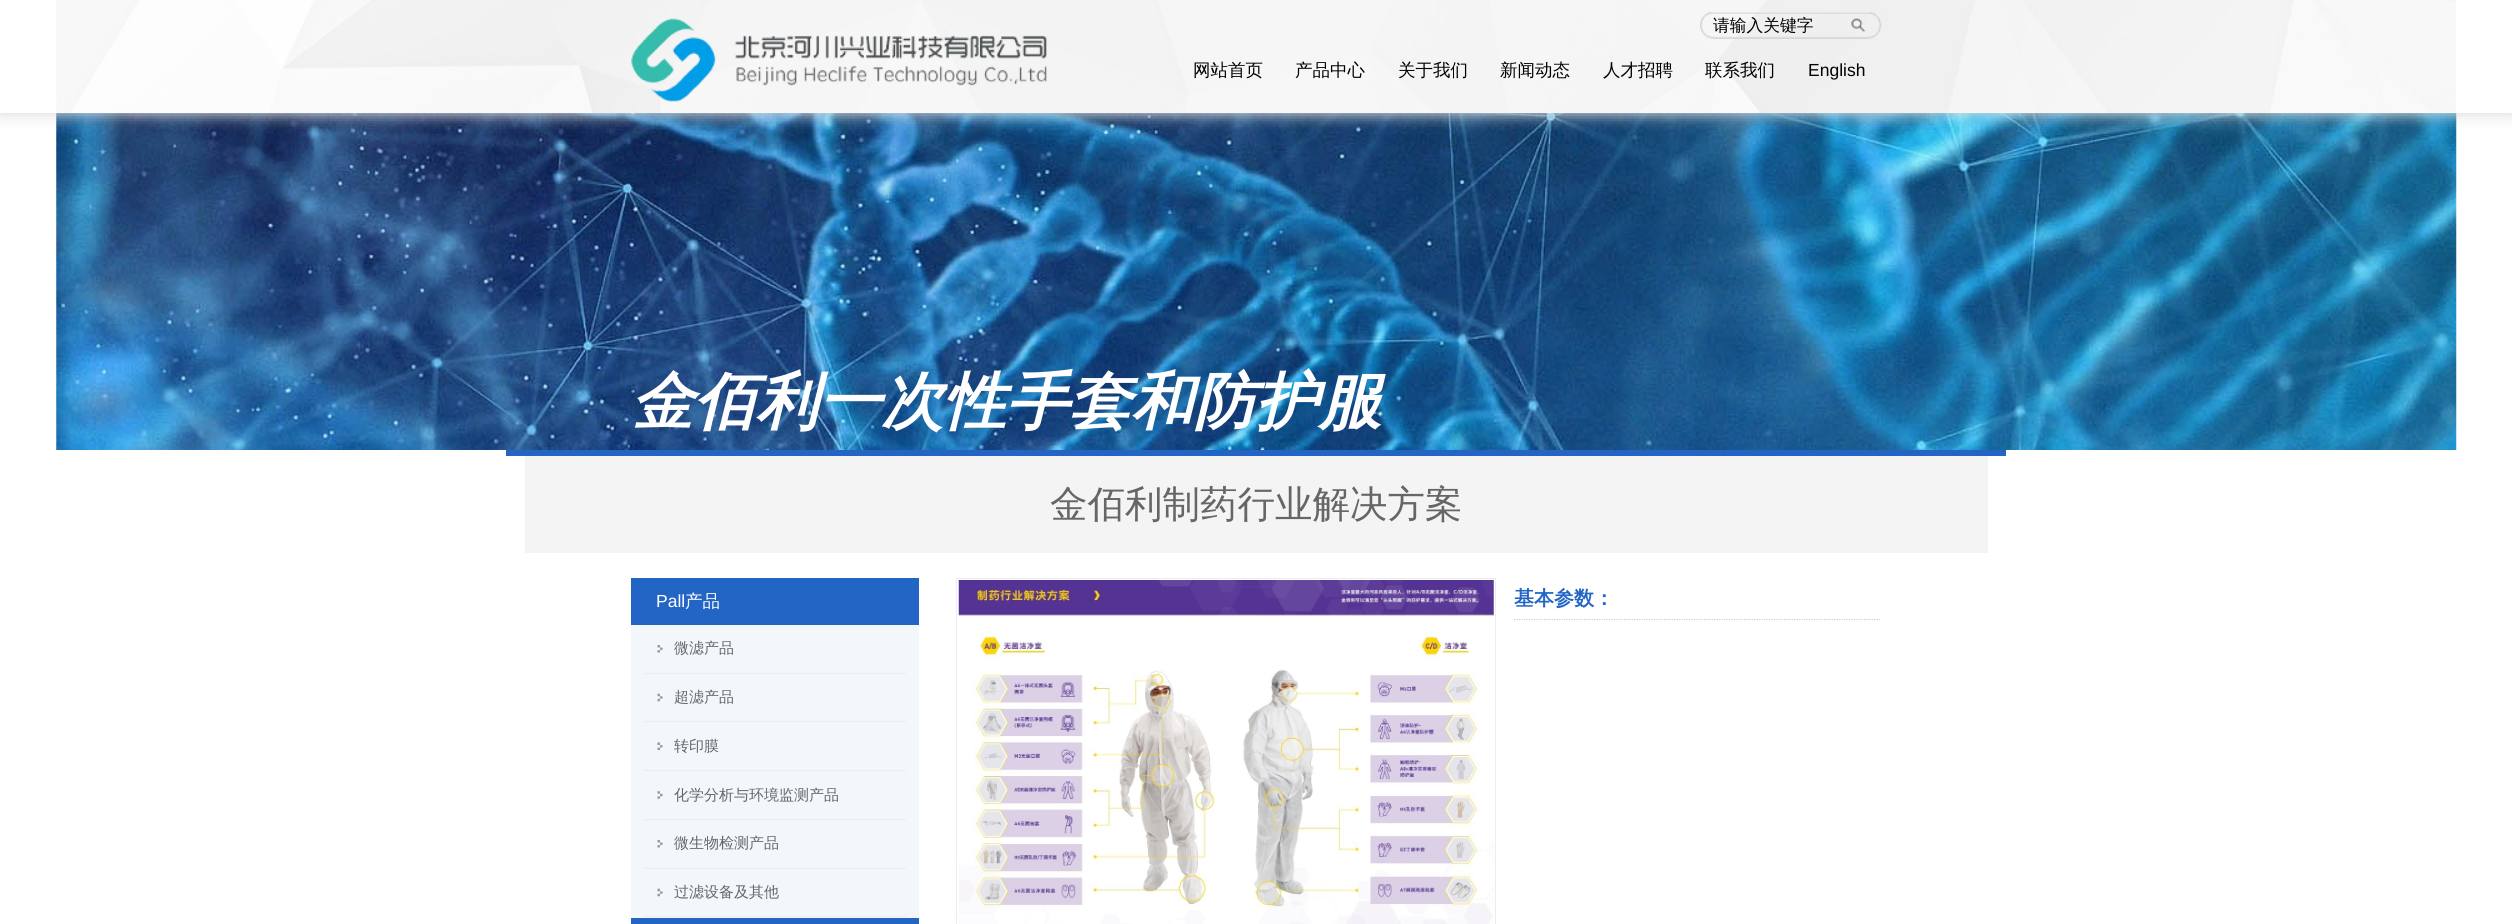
import math
import cairo

surface = cairo.ImageSurface(cairo.FORMAT_RGB24, 2512, 924)
ctx = cairo.Context(surface)
options = cairo.FontOptions()
options.set_hint_metrics(cairo.HINT_METRICS_OFF)
options.set_hint_style(cairo.HINT_STYLE_NONE)
ctx.set_font_options(options)
ctx.set_miter_limit(4)


def set_color(code):
    ctx.set_source_rgb(*(v / 255 for v in bytes.fromhex(code[-6:])))


def draw_text(x, y, s, family, size, color, bold=False, italic=False):
    ctx.select_font_face(family, cairo.FONT_SLANT_ITALIC if italic else cairo.FONT_SLANT_NORMAL, cairo.FONT_WEIGHT_BOLD if bold else cairo.FONT_WEIGHT_NORMAL)
    ctx.set_font_size(size)
    set_color(color)
    ctx.move_to(x, y)
    ctx.show_text(s)


def fill_rect(x, y, w, h, color):
    set_color(color)
    ctx.rectangle(x, y, w, h)
    ctx.fill()


def rounded_rect(x, y, w, h, r):
    ctx.new_sub_path()
    for i, (u, v) in enumerate([(x + w - r, y + h - r), (x + r, y + h - r), (x + r, y + r), (x + w - r, y + r)]):
        ctx.arc(u, v, r, i * math.pi / 2, (i + 1) * math.pi / 2)
    ctx.close_path()


def draw_shadow(x, y, w, h, r, blur, alpha):
    ctx.push_group_with_content(cairo.CONTENT_ALPHA)
    ctx.set_operator(cairo.OPERATOR_SOURCE)
    for i in range(15, -16, -2):
        e = blur * i / 6
        if min(w, h) + 2 * e > 0:
            ctx.set_source_rgba(0, 0, 0, alpha * math.erfc((i - 1) / 8.5) / 2)
            rounded_rect(x - e, y - e, w + 2 * e, h + 2 * e, max(0, min(r + e + blur * .6, min(w, h) / 2 + e)))
            ctx.fill()
    ctx.mask(ctx.pop_group())


def draw_image(path, x, y, w, h):
    ctx.save()
    ctx.set_source_surface(cairo.ImageSurface.create_from_png(path), x, y)
    ctx.rectangle(x, y, w, h)
    ctx.fill()
    ctx.restore()


set_color("#ffffff")
ctx.paint()
draw_image("assets/img4.png", 56, 113, 2401, 337)
ctx.save()
ctx.set_fill_rule(cairo.FILL_RULE_EVEN_ODD)
ctx.new_path()
ctx.move_to(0, 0)
ctx.line_to(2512, 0)
ctx.line_to(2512, 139)
ctx.line_to(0, 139)
ctx.close_path()
ctx.move_to(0, 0)
ctx.line_to(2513, 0)
ctx.line_to(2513, 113)
ctx.line_to(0, 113)
ctx.close_path()
ctx.clip()
set_color("#dedede")
draw_shadow(0, 3, 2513, 112, 0, 7.5, 1)
ctx.restore()
draw_image("assets/img1.png", 56, 0, 2400, 113)
draw_image("assets/img2.png", 631, 18, 416, 84)
draw_image("assets/img3.png", 1700, 12, 182, 27)
draw_text(1713, 31, "请输入关键字", "WenQuanYi Zen Hei Medium", 16.75, "#000000")
draw_text(1193, 76, "网站首页", "WenQuanYi Zen Hei Medium", 17.5, "#000000")
draw_text(1295, 76, "产品中心", "WenQuanYi Zen Hei Medium", 17.5, "#000000")
draw_text(1398, 76, "关于我们", "WenQuanYi Zen Hei Medium", 17.5, "#000000")
draw_text(1500, 76, "新闻动态", "WenQuanYi Zen Hei Medium", 17.5, "#000000")
draw_text(1603, 76, "人才招聘", "WenQuanYi Zen Hei Medium", 17.5, "#000000")
draw_text(1705, 76, "联系我们", "WenQuanYi Zen Hei Medium", 17.5, "#000000")
draw_text(1808, 76, "English", "Liberation Sans", 17.5, "#000000")
draw_text(631, 423, "金佰利一次性手套和防护服", "WenQuanYi Zen Hei", 62.5, "#ffffff", bold=True, italic=True)
fill_rect(506, 450, 1500, 6, "#2364c4")
fill_rect(525, 456, 1463, 97, "#f4f4f4")
draw_text(1050, 517, "金佰利制药行业解决方案", "WenQuanYi Zen Hei Medium", 37.5, "#666666")
fill_rect(631, 625, 288, 293, "#f2f7fb")
fill_rect(631, 578, 288, 47, "#2365c5")
draw_text(656, 607, "Pall", "Liberation Sans", 17.5, "#ffffff")
draw_text(685, 607, "产品", "WenQuanYi Zen Hei Medium", 17.5, "#ffffff")
fill_rect(644, 673, 262, 1, "#ececec")
draw_image("assets/img5.png", 657, 645, 6, 8)
draw_text(674, 653, "微滤产品", "WenQuanYi Zen Hei Medium", 15, "#666666")
fill_rect(644, 721, 262, 1, "#ececec")
draw_image("assets/img6.png", 657, 693, 6, 9)
draw_text(674, 702, "超滤产品", "WenQuanYi Zen Hei Medium", 15, "#666666")
fill_rect(644, 770, 262, 1, "#ececec")
draw_image("assets/img7.png", 657, 742, 6, 8)
draw_text(674, 751, "转印膜", "WenQuanYi Zen Hei Medium", 15, "#666666")
fill_rect(644, 819, 262, 1, "#ececec")
draw_image("assets/img8.png", 657, 791, 6, 8)
draw_text(674, 800, "化学分析与环境监测产品", "WenQuanYi Zen Hei Medium", 15, "#666666")
fill_rect(644, 868, 262, 1, "#ececec")
draw_image("assets/img5.png", 657, 840, 6, 8)
draw_text(674, 848, "微生物检测产品", "WenQuanYi Zen Hei Medium", 15, "#666666")
fill_rect(644, 916, 262, 1, "#ececec")
draw_image("assets/img6.png", 657, 888, 6, 9)
draw_text(674, 897, "过滤设备及其他", "WenQuanYi Zen Hei Medium", 15, "#666666")
fill_rect(631, 918, 288, 6, "#2365c5")
ctx.rectangle(956.5, 578.5, 539, 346)
set_color("#ececec")
ctx.set_line_width(1)
ctx.stroke()
draw_image("assets/img9.png", 958, 580, 536, 344)
ctx.new_path()
ctx.move_to(1514, 619.5)
ctx.line_to(1881, 619.5)
set_color("#cfcfcf")
ctx.set_line_width(1.2)
ctx.set_dash([1.25, 1.25])
ctx.stroke()
draw_text(1514, 605, "基本参数：", "WenQuanYi Zen Hei", 20, "#2365c5", bold=True)
surface.write_to_png("output.png")
